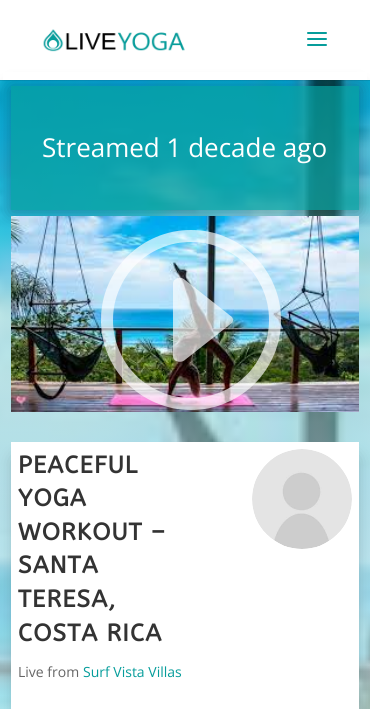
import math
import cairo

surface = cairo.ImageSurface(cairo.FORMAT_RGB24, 370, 709)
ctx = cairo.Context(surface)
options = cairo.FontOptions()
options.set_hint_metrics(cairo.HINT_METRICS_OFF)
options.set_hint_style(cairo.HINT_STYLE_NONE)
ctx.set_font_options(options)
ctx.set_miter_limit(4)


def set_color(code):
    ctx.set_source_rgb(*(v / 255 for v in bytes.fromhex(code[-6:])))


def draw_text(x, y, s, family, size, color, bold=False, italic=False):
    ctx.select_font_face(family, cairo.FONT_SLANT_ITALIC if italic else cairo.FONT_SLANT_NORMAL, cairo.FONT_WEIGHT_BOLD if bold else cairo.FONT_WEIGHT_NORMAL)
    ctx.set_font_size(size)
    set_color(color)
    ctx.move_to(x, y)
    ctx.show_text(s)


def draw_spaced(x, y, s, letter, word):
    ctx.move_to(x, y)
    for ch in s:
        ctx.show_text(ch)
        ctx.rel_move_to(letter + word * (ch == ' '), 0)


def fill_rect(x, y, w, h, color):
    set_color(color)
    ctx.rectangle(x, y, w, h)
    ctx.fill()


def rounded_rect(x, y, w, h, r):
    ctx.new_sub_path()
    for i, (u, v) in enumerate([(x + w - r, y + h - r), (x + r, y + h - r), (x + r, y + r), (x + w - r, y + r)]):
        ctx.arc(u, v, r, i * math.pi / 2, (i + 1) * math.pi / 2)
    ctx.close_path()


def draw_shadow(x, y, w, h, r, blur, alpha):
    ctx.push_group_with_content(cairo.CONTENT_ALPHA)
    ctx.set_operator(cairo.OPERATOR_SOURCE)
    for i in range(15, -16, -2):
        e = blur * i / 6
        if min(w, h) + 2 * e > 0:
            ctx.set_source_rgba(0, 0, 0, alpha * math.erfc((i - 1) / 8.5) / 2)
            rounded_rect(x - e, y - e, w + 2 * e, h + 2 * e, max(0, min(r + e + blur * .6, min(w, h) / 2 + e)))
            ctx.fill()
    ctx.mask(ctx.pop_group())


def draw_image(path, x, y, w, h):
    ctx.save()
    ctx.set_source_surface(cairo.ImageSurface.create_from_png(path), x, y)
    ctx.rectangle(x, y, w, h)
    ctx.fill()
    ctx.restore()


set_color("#ffffff")
ctx.paint()
draw_image("assets/img3.png", 0, 80, 370, 629)
ctx.save()
ctx.set_fill_rule(cairo.FILL_RULE_EVEN_ODD)
ctx.new_path()
ctx.move_to(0, 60)
ctx.line_to(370, 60)
ctx.line_to(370, 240)
ctx.line_to(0, 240)
ctx.close_path()
ctx.move_to(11, 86)
ctx.line_to(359, 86)
ctx.line_to(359, 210)
ctx.line_to(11, 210)
ctx.close_path()
ctx.clip()
set_color("#000000")
draw_shadow(11, 88, 348, 124, 0, 9, 0.3)
ctx.restore()
ctx.set_source_rgba(0, 0, 0, 0.1)
ctx.rectangle(0, 80, 370, 1)
ctx.fill()
fill_rect(3, 72, 364, 8, "#ffffff")
draw_image("assets/img1.png", 43, 29, 142, 23)
draw_image("assets/img2.png", 307, 32, 20, 14)
ctx.set_source_rgba(0.024, 0.616, 0.608, 0.71)
ctx.rectangle(11, 86, 348, 124)
ctx.fill()
draw_text(42, 157, "Streamed 1 decade ago", "Open Sans", 26, "#ffffff")
draw_image("assets/img4.png", 11, 216, 348, 196)
draw_image("assets/img5.png", 101, 230, 180, 180)
set_color("#000000")
draw_shadow(17, 460, 336, 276, 0, 9, 0.3)
fill_rect(11, 442, 348, 267, "#ffffff")
ctx.select_font_face("ABeeZee", cairo.FONT_SLANT_NORMAL, cairo.FONT_WEIGHT_BOLD)
ctx.set_font_size(24)
set_color("#333333")
draw_spaced(18, 473, "PEACEFUL", 1, 0)
draw_spaced(18, 506, "YOGA", 1, 0)
draw_spaced(18, 540, "WORKOUT –", 1, 0)
draw_spaced(18, 573, "SANTA", 1, 0)
draw_spaced(18, 607, "TERESA,", 1, 0)
draw_spaced(18, 641, "COSTA RICA", 1, 0)
draw_image("assets/img6.png", 252, 449, 100, 100)
draw_text(18, 677, "Live from", "Open Sans", 14, "#666666")
draw_text(83, 677, "Surf Vista Villas", "Open Sans", 14, "#069d9b")
surface.write_to_png("output.png")
